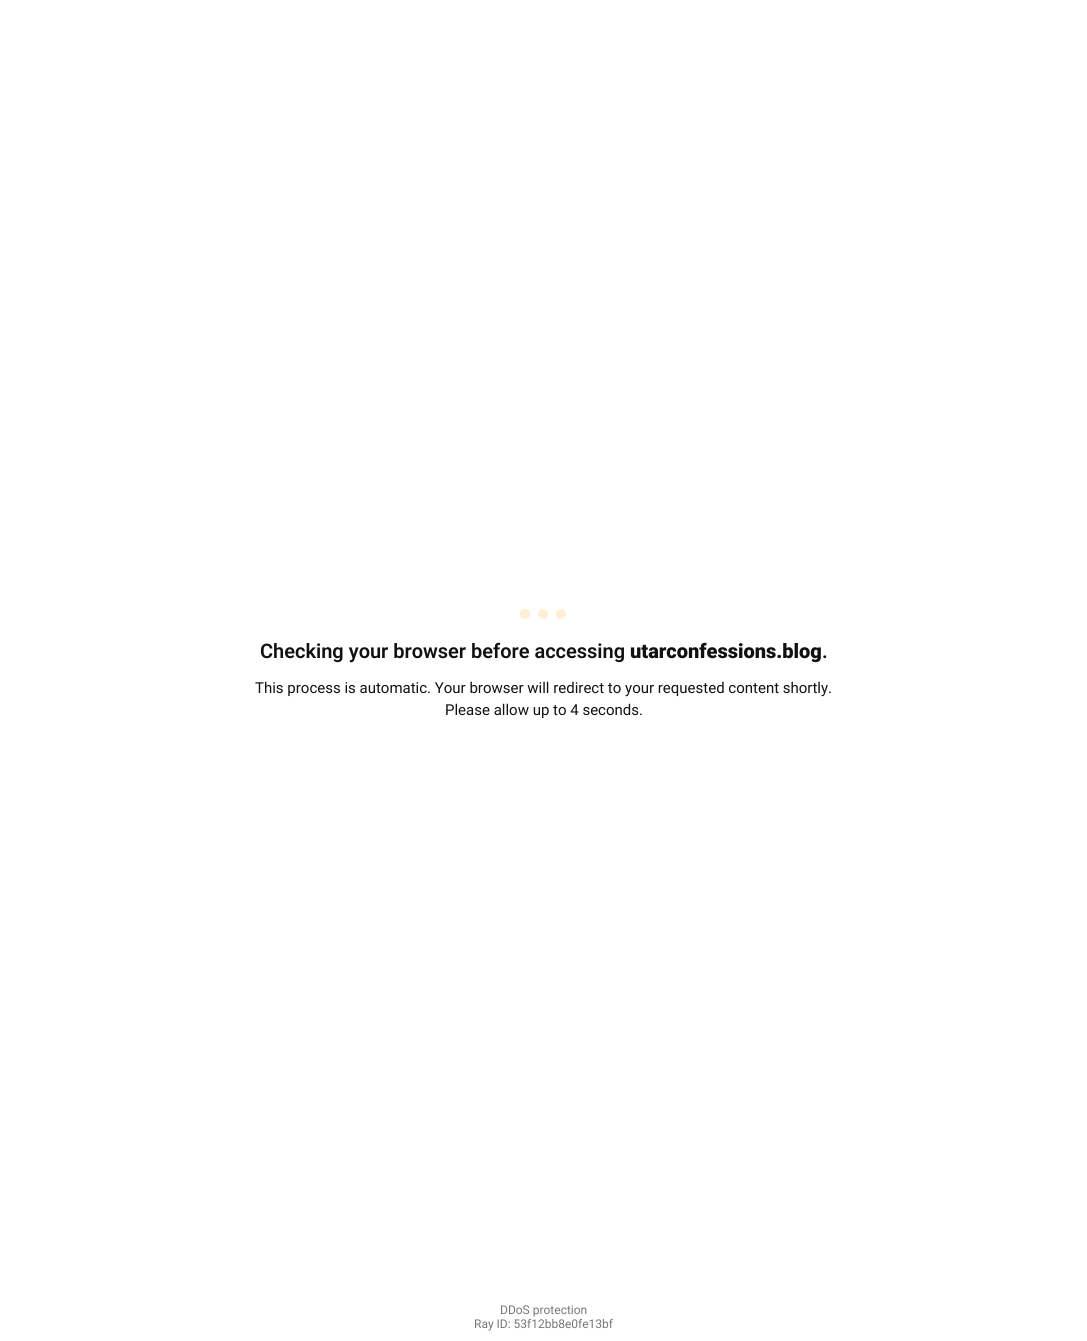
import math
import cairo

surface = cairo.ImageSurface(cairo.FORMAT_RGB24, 1087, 1341)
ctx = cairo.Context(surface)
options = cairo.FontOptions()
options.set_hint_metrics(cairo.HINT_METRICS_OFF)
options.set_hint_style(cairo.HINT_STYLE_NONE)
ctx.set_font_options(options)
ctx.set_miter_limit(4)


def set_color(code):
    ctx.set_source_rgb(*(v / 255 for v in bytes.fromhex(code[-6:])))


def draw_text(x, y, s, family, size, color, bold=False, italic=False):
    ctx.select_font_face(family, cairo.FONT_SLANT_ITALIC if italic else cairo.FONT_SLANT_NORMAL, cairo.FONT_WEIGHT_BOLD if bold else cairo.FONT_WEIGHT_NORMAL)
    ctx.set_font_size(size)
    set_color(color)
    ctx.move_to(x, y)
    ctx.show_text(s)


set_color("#ffffff")
ctx.paint()
set_color("#feeed3")
ctx.arc(525, 614, 5, 0, 2 * math.pi)
ctx.fill()
ctx.arc(543, 614, 5, 0, 2 * math.pi)
ctx.fill()
ctx.arc(561, 614, 5, 0, 2 * math.pi)
ctx.fill()
draw_text(260, 658, "Checking your browser before accessing", "Roboto SemiBold", 20, "#111111")
draw_text(630, 658, "utarconfessions.blog", "Roboto Black", 20, "#111111")
draw_text(822, 658, ".", "Roboto SemiBold", 20, "#111111")
draw_text(255, 693, "This process is automatic. Your browser will redirect to your requested content shortly.", "Roboto", 15, "#111111")
draw_text(445, 715, "Please allow up to 4 seconds.", "Roboto", 15, "#111111")
draw_text(500, 1314, "DDoS protection", "Roboto", 12, "#777777")
draw_text(474, 1328, "Ray ID: 53f12bb8e0fe13bf", "Roboto", 12, "#777777")
surface.write_to_png("output.png")
